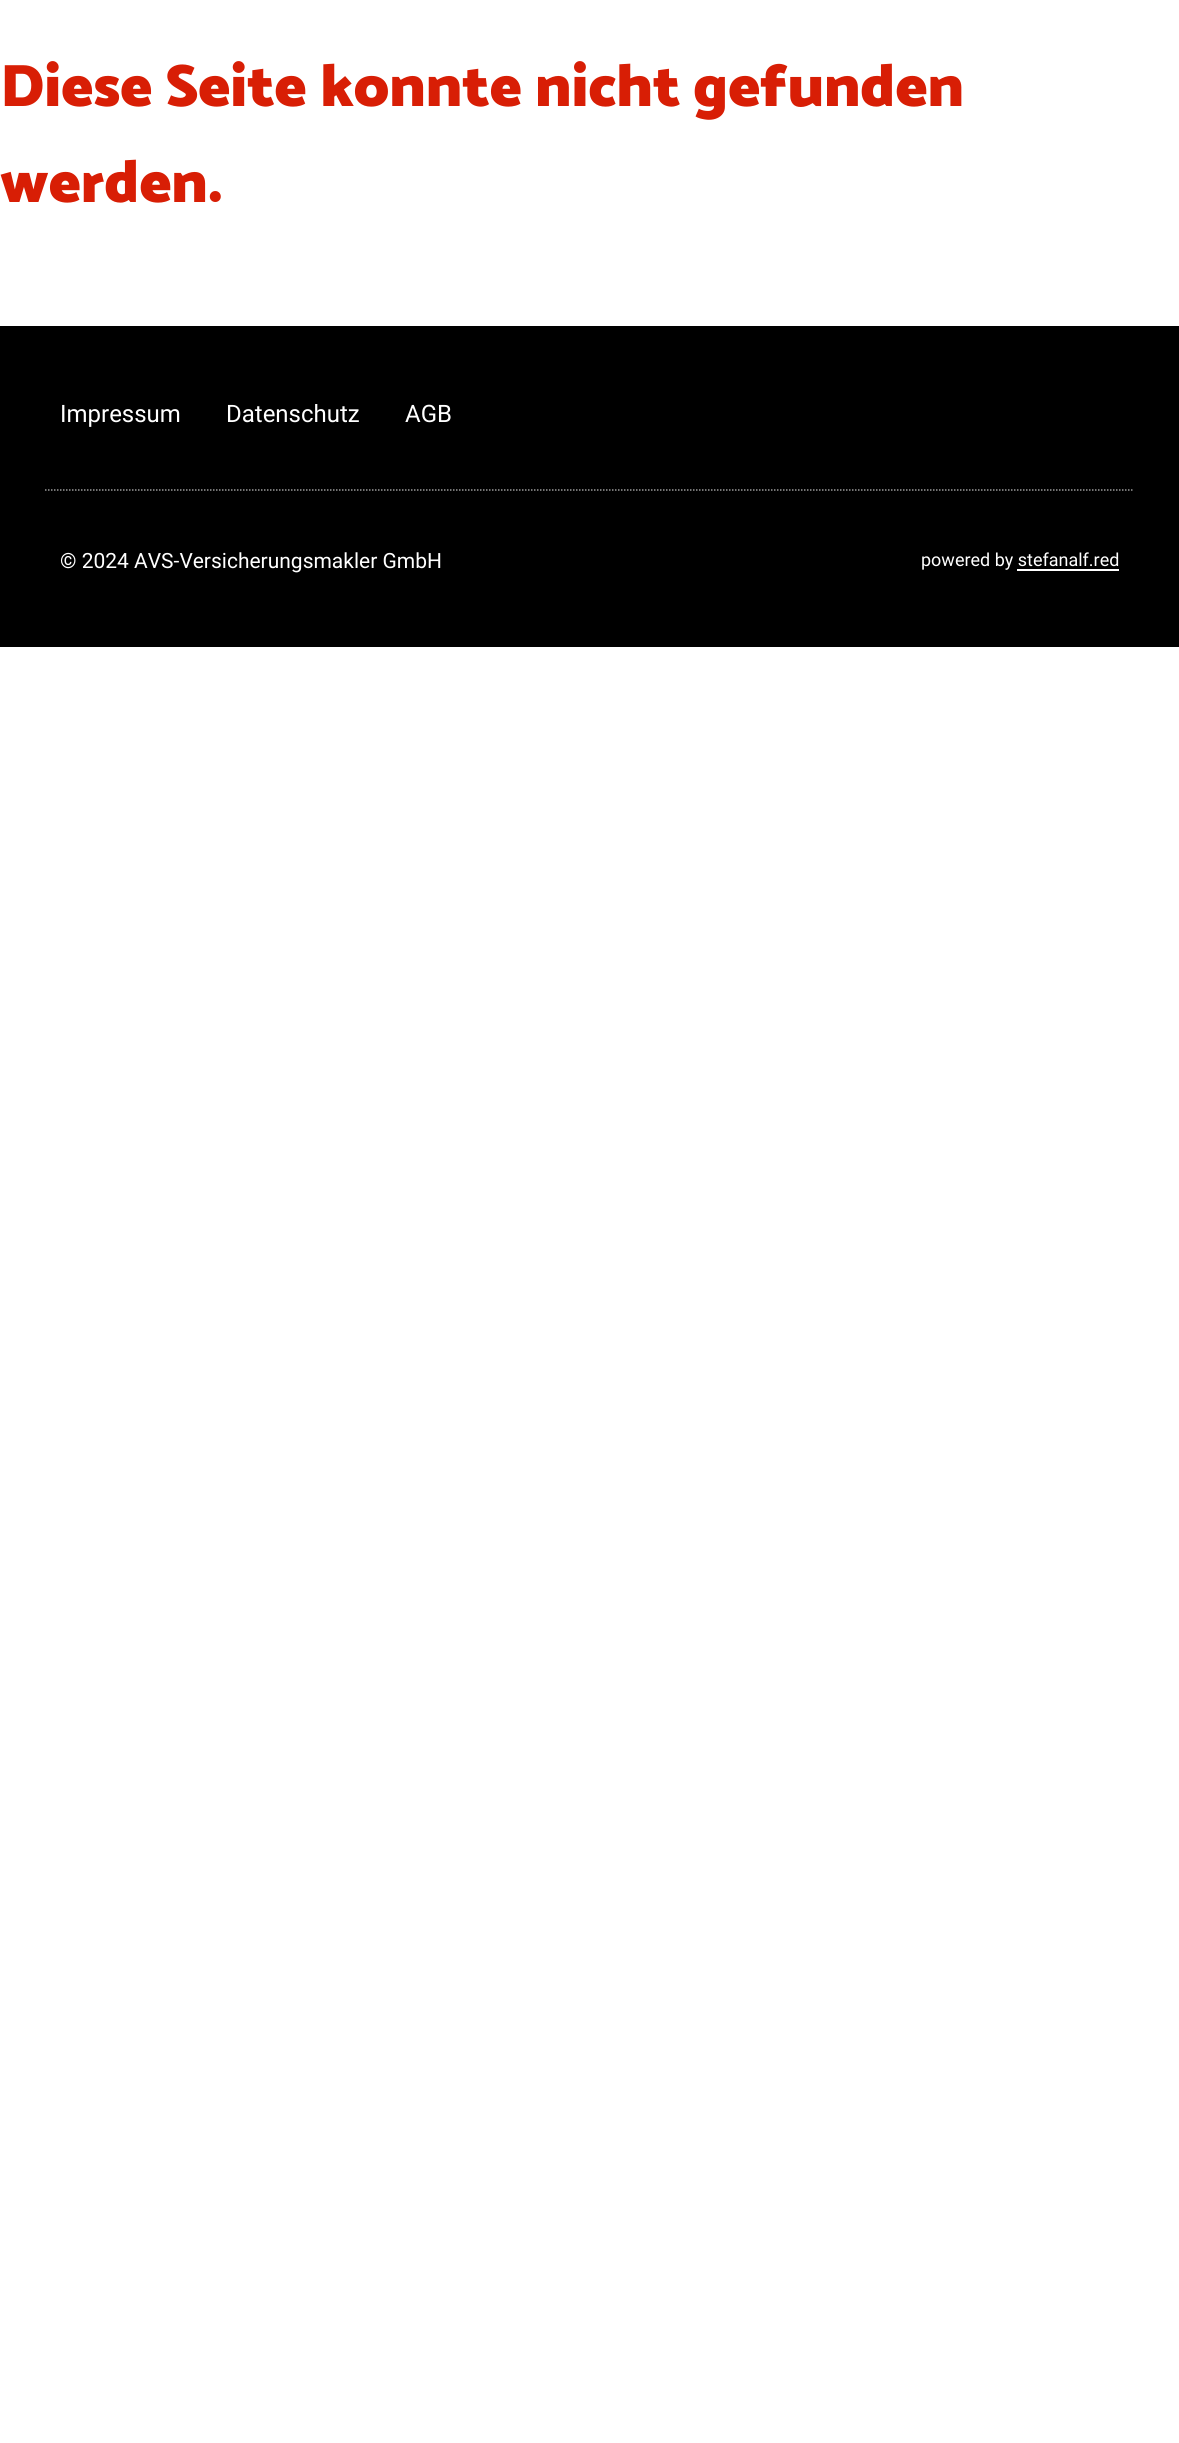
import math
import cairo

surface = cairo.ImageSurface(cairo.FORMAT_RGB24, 1179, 2443)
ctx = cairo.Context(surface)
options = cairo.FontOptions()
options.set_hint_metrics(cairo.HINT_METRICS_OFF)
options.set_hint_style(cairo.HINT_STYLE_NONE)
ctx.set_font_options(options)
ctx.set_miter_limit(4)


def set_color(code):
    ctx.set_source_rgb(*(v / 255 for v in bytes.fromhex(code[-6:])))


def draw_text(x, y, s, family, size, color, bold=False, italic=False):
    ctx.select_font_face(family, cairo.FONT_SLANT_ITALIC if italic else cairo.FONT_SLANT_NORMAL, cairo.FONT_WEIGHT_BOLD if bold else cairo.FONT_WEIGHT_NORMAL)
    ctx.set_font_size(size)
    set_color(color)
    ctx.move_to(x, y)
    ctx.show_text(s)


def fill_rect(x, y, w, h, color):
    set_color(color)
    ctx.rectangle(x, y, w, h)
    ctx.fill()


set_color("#ffffff")
ctx.paint()
draw_text(0, 106, "Diese Seite konnte nicht gefunden", "Catamaran Black", 60, "#d81e05")
draw_text(0, 202, "werden.", "Catamaran Black", 60, "#d81e05")
fill_rect(0, 326, 1179, 321, "#000000")
ctx.new_path()
ctx.move_to(45, 490)
ctx.line_to(1134, 490)
set_color("#9b9b9b")
ctx.set_line_width(1.5)
ctx.set_dash([1.5, 1.5])
ctx.stroke()
draw_text(60, 422, "Impressum", "Roboto", 24, "#ffffff")
draw_text(226, 422, "Datenschutz", "Roboto", 24, "#ffffff")
draw_text(405, 422, "AGB", "Roboto", 24, "#ffffff")
draw_text(60, 568, "© 2024 AVS-Versicherungsmakler GmbH", "Roboto", 21, "#ffffff")
draw_text(921, 566, "powered by stefanalf.red", "Roboto", 18, "#ffffff")
fill_rect(1017, 569, 102, 2, "#ffffff")
surface.write_to_png("output.png")
